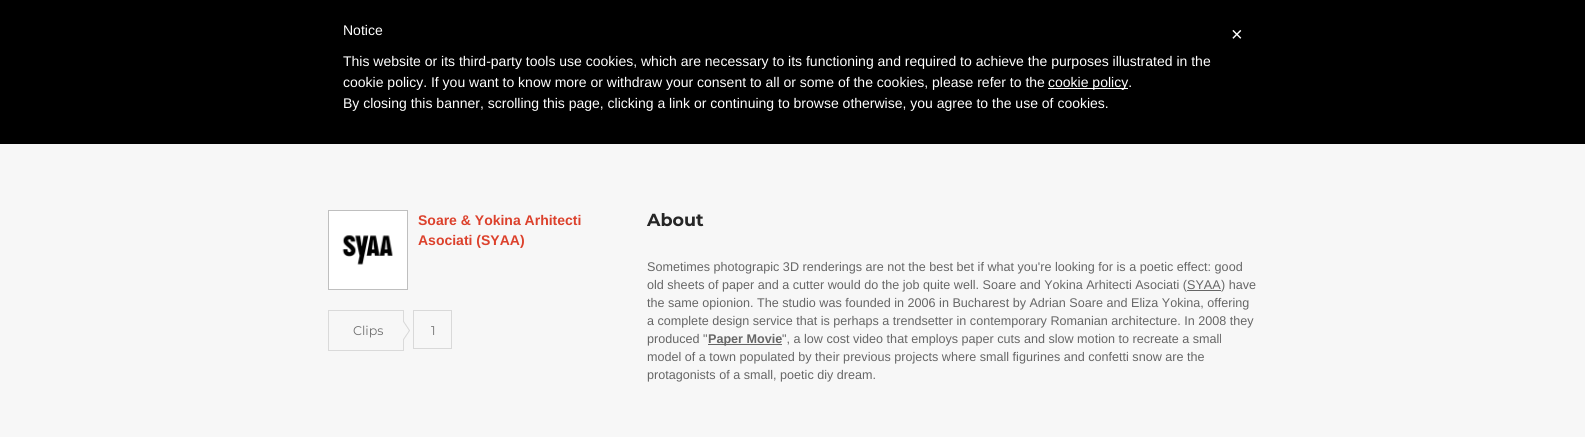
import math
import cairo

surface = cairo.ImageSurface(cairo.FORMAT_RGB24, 1585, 437)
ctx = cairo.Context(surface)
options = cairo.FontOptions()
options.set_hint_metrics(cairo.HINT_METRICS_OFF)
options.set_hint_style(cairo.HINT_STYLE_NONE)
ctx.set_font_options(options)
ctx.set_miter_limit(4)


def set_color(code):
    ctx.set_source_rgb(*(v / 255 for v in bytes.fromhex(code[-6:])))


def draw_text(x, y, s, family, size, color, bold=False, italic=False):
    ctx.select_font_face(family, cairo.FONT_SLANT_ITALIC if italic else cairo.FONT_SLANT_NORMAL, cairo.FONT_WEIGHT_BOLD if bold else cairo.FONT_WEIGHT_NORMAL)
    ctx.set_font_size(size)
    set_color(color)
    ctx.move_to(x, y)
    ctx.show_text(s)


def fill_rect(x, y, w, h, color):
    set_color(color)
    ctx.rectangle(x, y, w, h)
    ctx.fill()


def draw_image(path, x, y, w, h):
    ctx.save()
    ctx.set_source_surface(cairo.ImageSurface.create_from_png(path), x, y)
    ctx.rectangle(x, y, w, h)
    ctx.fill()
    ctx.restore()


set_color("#f7f7f7")
ctx.paint()
fill_rect(0, 0, 1585, 144, "#000000")
draw_text(343, 35, "Notice", "Liberation Sans", 14, "#ffffff")
draw_text(343, 66, "This website or its third-party tools use cookies, which are necessary to its functioning and required to achieve the purposes illustrated in the", "Liberation Sans", 14, "#ffffff")
draw_text(343, 87, "cookie policy. If you want to know more or withdraw your consent to all or some of the cookies, please refer to the", "Liberation Sans", 14, "#ffffff")
fill_rect(1048, 88, 80, 1, "#ffffff")
draw_text(1048, 87, "cookie policy.", "Liberation Sans", 14, "#ffffff")
draw_text(343, 108, "By closing this banner, scrolling this page, clicking a link or continuing to browse otherwise, you agree to the use of cookies.", "Liberation Sans", 14, "#ffffff")
draw_text(1231, 41, "×", "Liberation Sans", 20, "#ffffff")
ctx.rectangle(328.5, 210.5, 79, 79)
set_color("#bfbfbf")
ctx.set_line_width(1)
ctx.stroke()
draw_image("assets/img1.png", 329, 211, 78, 78)
draw_text(418, 225, "Soare & Yokina Arhitecti", "Liberation Sans", 14, "#dc412c", bold=True)
draw_text(418, 245, "Asociati (SYAA)", "Liberation Sans", 14, "#dc412c", bold=True)
draw_image("assets/img2.png", 328, 310, 82, 41)
draw_text(353, 335, "Clips", "Montserrat", 12.6, "#707070")
ctx.rectangle(413.5, 310.5, 38, 38)
set_color("#d9d9d9")
ctx.stroke()
draw_text(431, 335, "1", "Montserrat", 12.6, "#707070")
draw_text(647, 226, "About", "Montserrat", 17.5, "#262626", bold=True)
draw_text(647, 271, "Sometimes photograpic 3D renderings are not the best bet if what you're looking for is a poetic effect: good", "Liberation Sans", 12.6, "#666666")
draw_text(647, 289, "old sheets of paper and a cutter would do the job quite well. Soare and Yokina Arhitecti Asociati (SYAA", "Liberation Sans", 12.6, "#666666")
fill_rect(1187, 290, 34, 1, "#666666")
draw_text(1221, 289, ") have", "Liberation Sans", 12.6, "#666666")
draw_text(647, 307, "the same opionion. The studio was founded in 2006 in Bucharest by Adrian Soare and Eliza Yokina, offering", "Liberation Sans", 12.6, "#666666")
draw_text(647, 325, "a complete design service that is perhaps a trendsetter in contemporary Romanian architecture. In 2008 they", "Liberation Sans", 12.6, "#666666")
draw_text(647, 343, "produced \"", "Liberation Sans", 12.6, "#666666")
fill_rect(708, 344, 74, 1, "#666666")
draw_text(708, 343, "Paper Movie", "Liberation Sans", 12.6, "#666666", bold=True)
draw_text(782, 343, "\", a low cost video that employs paper cuts and slow motion to recreate a small", "Liberation Sans", 12.6, "#666666")
draw_text(647, 361, "model of a town populated by their previous projects where small figurines and confetti snow are the", "Liberation Sans", 12.6, "#666666")
draw_text(647, 379, "protagonists of a small, poetic diy dream.", "Liberation Sans", 12.6, "#666666")
surface.write_to_png("output.png")
